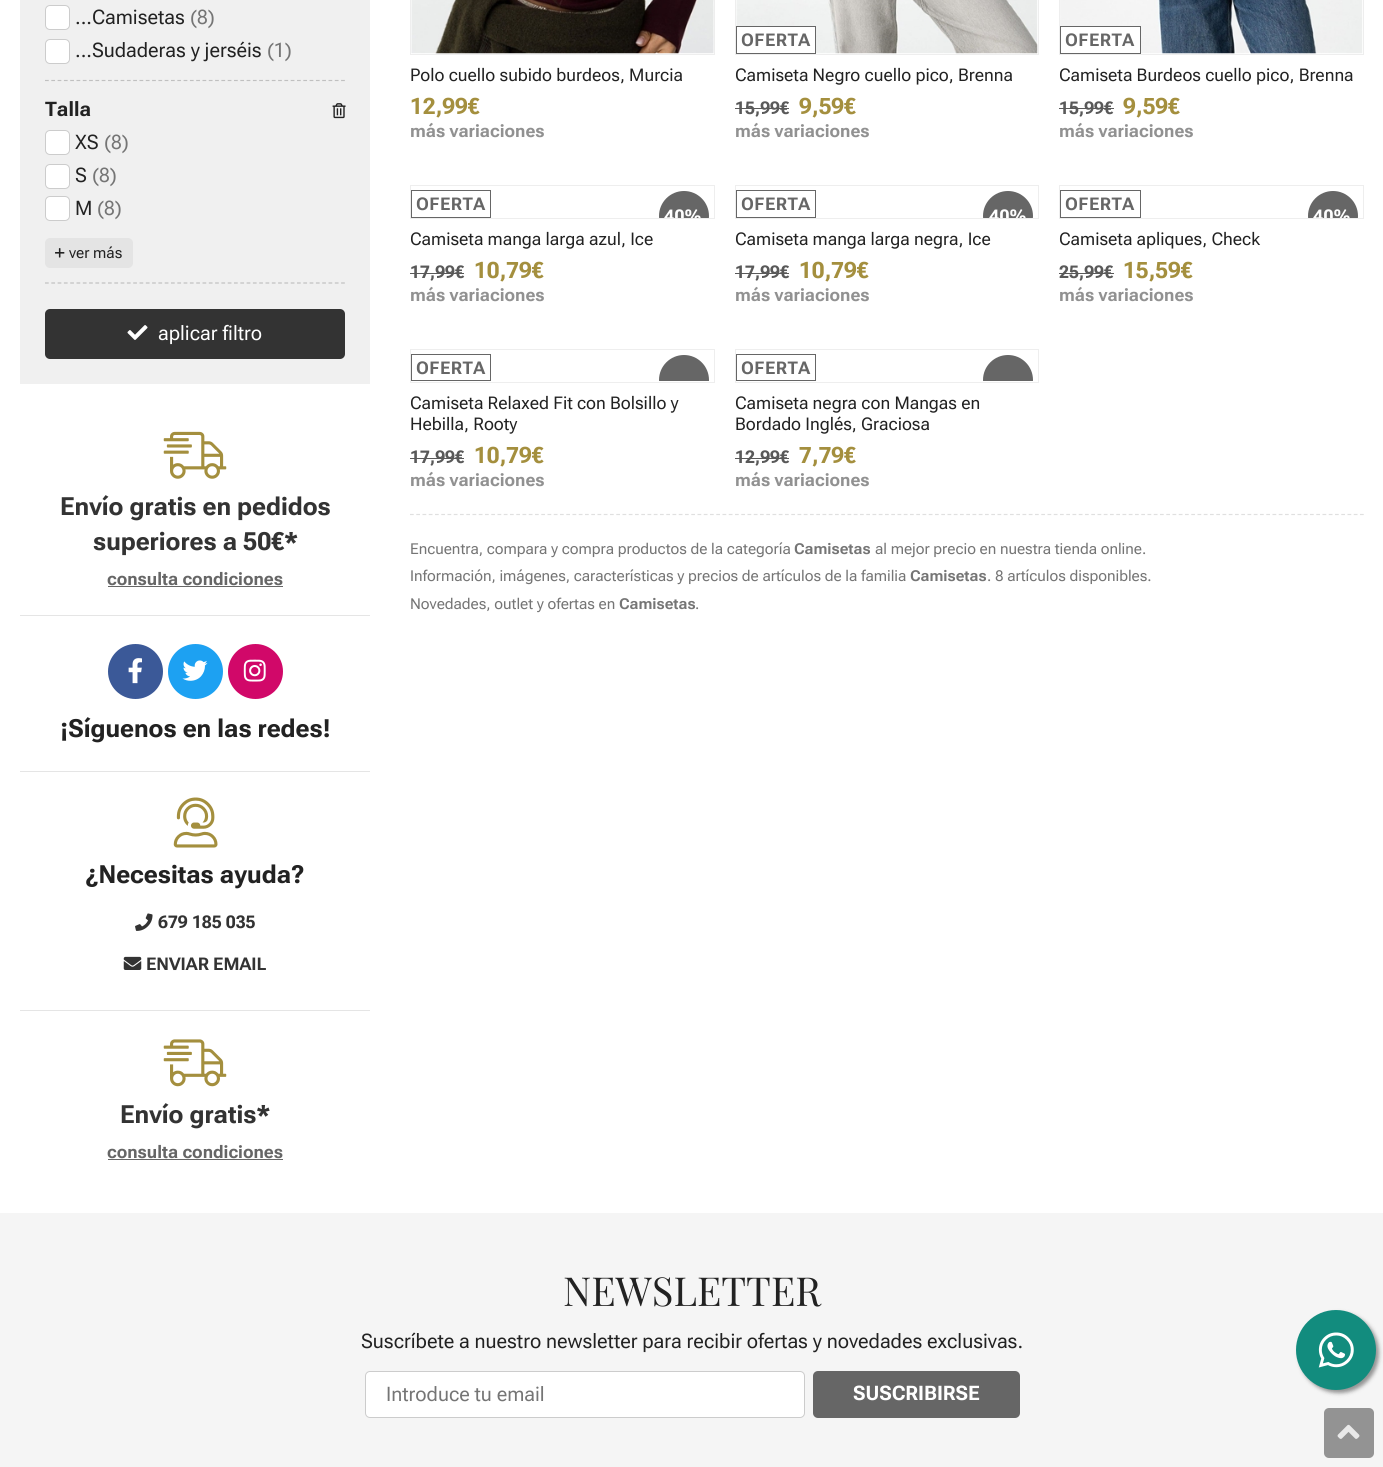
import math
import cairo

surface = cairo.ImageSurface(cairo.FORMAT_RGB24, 1383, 1467)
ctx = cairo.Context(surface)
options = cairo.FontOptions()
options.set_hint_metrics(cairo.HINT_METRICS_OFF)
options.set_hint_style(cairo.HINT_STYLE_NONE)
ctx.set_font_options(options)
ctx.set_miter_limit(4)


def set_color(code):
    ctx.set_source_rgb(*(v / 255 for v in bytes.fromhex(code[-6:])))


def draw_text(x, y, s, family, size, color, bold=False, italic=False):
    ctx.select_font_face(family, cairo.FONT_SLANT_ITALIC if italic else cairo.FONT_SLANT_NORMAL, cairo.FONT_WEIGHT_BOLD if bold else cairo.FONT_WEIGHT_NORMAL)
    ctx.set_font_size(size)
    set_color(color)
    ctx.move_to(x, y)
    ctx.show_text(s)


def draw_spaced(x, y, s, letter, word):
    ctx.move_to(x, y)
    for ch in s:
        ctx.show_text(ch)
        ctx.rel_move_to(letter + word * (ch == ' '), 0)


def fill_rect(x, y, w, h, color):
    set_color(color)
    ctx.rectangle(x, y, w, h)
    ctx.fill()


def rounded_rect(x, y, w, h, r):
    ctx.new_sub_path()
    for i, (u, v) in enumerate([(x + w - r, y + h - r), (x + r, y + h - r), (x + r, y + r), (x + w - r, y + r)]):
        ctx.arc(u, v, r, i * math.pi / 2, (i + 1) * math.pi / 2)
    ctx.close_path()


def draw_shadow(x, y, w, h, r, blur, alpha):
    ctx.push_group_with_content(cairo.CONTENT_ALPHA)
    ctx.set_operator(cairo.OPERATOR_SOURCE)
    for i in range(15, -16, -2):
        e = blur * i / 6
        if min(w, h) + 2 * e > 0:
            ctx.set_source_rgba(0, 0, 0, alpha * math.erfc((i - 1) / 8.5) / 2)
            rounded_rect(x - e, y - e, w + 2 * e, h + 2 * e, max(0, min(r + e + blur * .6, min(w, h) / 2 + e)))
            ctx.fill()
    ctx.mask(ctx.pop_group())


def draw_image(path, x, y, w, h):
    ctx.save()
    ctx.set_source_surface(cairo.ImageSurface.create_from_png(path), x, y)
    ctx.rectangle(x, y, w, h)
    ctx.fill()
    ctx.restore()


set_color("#ffffff")
ctx.paint()
fill_rect(20, 0, 350, 384, "#f0f0f0")
ctx.new_path()
ctx.move_to(45, 80.5)
ctx.line_to(345, 80.5)
set_color("#c0c0c0")
ctx.set_line_width(1.2)
ctx.set_dash([3.75, 2.55])
ctx.stroke()
set_color("#ffffff")
rounded_rect(45.5, 5.5, 24, 24, 4.5)
ctx.fill_preserve()
set_color("#cccccc")
ctx.set_line_width(1)
ctx.set_dash([])
ctx.stroke()
draw_text(75, 24, "...Camisetas", "Roboto Flex", 20, "#222222")
draw_text(190, 24, "(8)", "Roboto Flex", 20, "#757575")
set_color("#ffffff")
rounded_rect(45.5, 39.5, 24, 24, 4.5)
ctx.fill_preserve()
set_color("#cccccc")
ctx.stroke()
draw_text(75, 57, "...Sudaderas y jerséis", "Roboto Flex", 20, "#222222")
draw_text(267, 57, "(1)", "Roboto Flex", 20, "#757575")
ctx.new_path()
ctx.move_to(45, 283)
ctx.line_to(345, 283)
set_color("#c0c0c0")
ctx.set_line_width(1.2)
ctx.set_dash([3.75, 2.55])
ctx.stroke()
draw_text(45, 116, "Talla", "Roboto Flex", 20, "#222222", bold=True)
draw_image("assets/img1.png", 332, 103, 14, 16)
set_color("#ffffff")
rounded_rect(45.5, 130.5, 24, 24, 4.5)
ctx.fill_preserve()
set_color("#cccccc")
ctx.set_line_width(1)
ctx.set_dash([])
ctx.stroke()
draw_text(75, 149, "XS", "Roboto Flex", 20, "#222222")
draw_text(104, 149, "(8)", "Roboto Flex", 20, "#757575")
set_color("#ffffff")
rounded_rect(45.5, 164.5, 24, 24, 4.5)
ctx.fill_preserve()
set_color("#cccccc")
ctx.stroke()
draw_text(75, 182, "S", "Roboto Flex", 20, "#222222")
draw_text(92, 182, "(8)", "Roboto Flex", 20, "#757575")
set_color("#ffffff")
rounded_rect(45.5, 196.5, 24, 24, 4.5)
ctx.fill_preserve()
set_color("#cccccc")
ctx.stroke()
draw_text(75, 215, "M", "Roboto Flex", 20, "#222222")
draw_text(97, 215, "(8)", "Roboto Flex", 20, "#757575")
set_color("#e4e4e4")
rounded_rect(45, 238, 88, 30, 5)
ctx.fill()
draw_image("assets/img2.png", 55, 248, 10, 10)
draw_text(69, 258, "ver más", "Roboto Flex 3", 15, "#222222")
set_color("#333333")
rounded_rect(45, 309, 300, 50, 5)
ctx.fill()
draw_image("assets/img3.png", 127, 325, 21, 15)
draw_text(158, 340, "aplicar filtro", "Roboto Flex", 20, "#ffffff")
fill_rect(20, 615, 350, 1, "#e5e5e5")
draw_image("assets/img4.png", 163, 431, 64, 48)
draw_text(60, 515, "Envío gratis en pedidos", "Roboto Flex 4", 25, "#333333", bold=True)
draw_text(93, 550, "superiores a 50€*", "Roboto Flex 4", 25, "#333333", bold=True)
draw_text(107, 585, "consulta condiciones", "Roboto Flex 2", 17.5, "#666666", bold=True)
fill_rect(108, 586, 175, 1, "#666666")
fill_rect(20, 771, 350, 1, "#e5e5e5")
set_color("#3b5998")
ctx.new_path()
ctx.arc(135.5, 671.5, 27.5, 0, 2 * math.pi)
ctx.fill()
draw_image("assets/img5.png", 128, 658, 14, 26)
set_color("#1da1f2")
ctx.arc(195.5, 671.5, 27.5, 0, 2 * math.pi)
ctx.fill()
draw_image("assets/img6.png", 182, 660, 26, 21)
set_color("#d10869")
ctx.arc(255.5, 671.5, 27.5, 0, 2 * math.pi)
ctx.fill()
draw_image("assets/img7.png", 243, 659, 23, 23)
draw_text(60, 737, "¡Síguenos en las redes!", "Roboto Flex 4", 25, "#222222", bold=True)
fill_rect(20, 1010, 350, 1, "#e5e5e5")
draw_image("assets/img8.png", 173, 797, 45, 51)
draw_text(85, 883, "¿Necesitas ayuda?", "Roboto Flex 4", 25, "#222222", bold=True)
draw_image("assets/img9.png", 135, 913, 18, 18)
draw_text(158, 928, "679 185 035", "Roboto Flex 2", 17.5, "#333333", bold=True)
draw_image("assets/img10.png", 123, 956, 19, 14)
draw_text(146, 970, "ENVIAR EMAIL", "Roboto Flex 2", 17.5, "#333333", bold=True)
draw_image("assets/img11.png", 163, 1039, 64, 48)
draw_text(120, 1123, "Envío gratis*", "Roboto Flex 4", 25, "#333333", bold=True)
draw_text(107, 1158, "consulta condiciones", "Roboto Flex 2", 17.5, "#666666", bold=True)
fill_rect(108, 1159, 175, 1, "#666666")
ctx.rectangle(410.5, -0.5, 304, 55)
set_color("#eeeeee")
ctx.stroke()
draw_image("assets/img12.png", 411, 0, 303, 54)
draw_text(410, 81, "Polo cuello subido burdeos, Murcia", "Roboto Flex 2", 17.5, "#222222")
draw_text(410, 114, "12,99€", "Roboto Flex 2", 22.5, "#a48f3e", bold=True)
draw_text(410, 137, "más variaciones", "Roboto Flex 2", 17.5, "#919191", bold=True)
ctx.rectangle(735.5, -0.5, 303, 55)
set_color("#eeeeee")
ctx.stroke()
draw_image("assets/img13.png", 736, 0, 302, 54)
set_color("#ffffff")
ctx.rectangle(736.5, 26.5, 79, 27)
ctx.fill_preserve()
set_color("#666666")
ctx.stroke()
draw_spaced(741, 46, "OFERTA", 0.5, 0)
draw_text(735, 81, "Camiseta Negro cuello pico, Brenna", "Roboto Flex 2", 17.5, "#222222")
draw_text(735, 114, "15,99€", "Roboto Flex 2", 17.5, "#595959", bold=True)
fill_rect(735, 108, 54, 1, "#595959")
draw_text(799, 114, "9,59€", "Roboto Flex 2", 22.5, "#a48f3e", bold=True)
draw_text(735, 137, "más variaciones", "Roboto Flex 2", 17.5, "#919191", bold=True)
ctx.rectangle(1059.5, -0.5, 304, 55)
set_color("#eeeeee")
ctx.stroke()
draw_image("assets/img14.png", 1060, 0, 303, 54)
set_color("#ffffff")
ctx.rectangle(1060.5, 26.5, 80, 27)
ctx.fill_preserve()
set_color("#666666")
ctx.stroke()
draw_spaced(1065, 46, "OFERTA", 0.5, 0)
draw_text(1059, 81, "Camiseta Burdeos cuello pico, Brenna", "Roboto Flex 2", 17.5, "#222222")
draw_text(1059, 114, "15,99€", "Roboto Flex 2", 17.5, "#595959", bold=True)
fill_rect(1059, 108, 55, 1, "#595959")
draw_text(1123, 114, "9,59€", "Roboto Flex 2", 22.5, "#a48f3e", bold=True)
draw_text(1059, 137, "más variaciones", "Roboto Flex 2", 17.5, "#919191", bold=True)
ctx.rectangle(410.5, 185.5, 304, 33)
set_color("#eeeeee")
ctx.stroke()
ctx.rectangle(411.5, 190.5, 79, 27)
set_color("#666666")
ctx.stroke()
draw_spaced(416, 210, "OFERTA", 0.5, 0)
ctx.save()
ctx.rectangle(411, 186, 303, 32)
ctx.clip()
ctx.arc(684, 216, 25, 0, 2 * math.pi)
ctx.fill()
set_color("#ffffff")
draw_spaced(664, 222, "40%", 0.5, 0)
ctx.restore()
draw_text(410, 245, "Camiseta manga larga azul, Ice", "Roboto Flex 2", 17.5, "#222222")
draw_text(410, 278, "17,99€", "Roboto Flex 2", 17.5, "#595959", bold=True)
fill_rect(410, 273, 54, 1, "#595959")
draw_text(474, 278, "10,79€", "Roboto Flex 2", 22.5, "#a48f3e", bold=True)
draw_text(410, 301, "más variaciones", "Roboto Flex 2", 17.5, "#919191", bold=True)
ctx.rectangle(735.5, 185.5, 303, 33)
set_color("#eeeeee")
ctx.stroke()
ctx.rectangle(736.5, 190.5, 79, 27)
set_color("#666666")
ctx.stroke()
draw_spaced(741, 210, "OFERTA", 0.5, 0)
draw_text(735, 245, "Camiseta manga larga negra, Ice", "Roboto Flex 2", 17.5, "#222222")
ctx.save()
ctx.rectangle(736, 186, 302, 32)
ctx.clip()
set_color("#666666")
ctx.arc(1008, 216, 25, 0, 2 * math.pi)
ctx.fill()
ctx.select_font_face("Roboto Flex 2", cairo.FONT_SLANT_NORMAL, cairo.FONT_WEIGHT_BOLD)
set_color("#ffffff")
draw_spaced(989, 222, "40%", 0.5, 0)
ctx.restore()
draw_text(735, 278, "17,99€", "Roboto Flex 2", 17.5, "#595959", bold=True)
fill_rect(735, 273, 54, 1, "#595959")
draw_text(799, 278, "10,79€", "Roboto Flex 2", 22.5, "#a48f3e", bold=True)
draw_text(735, 301, "más variaciones", "Roboto Flex 2", 17.5, "#919191", bold=True)
ctx.rectangle(1059.5, 185.5, 304, 33)
set_color("#eeeeee")
ctx.stroke()
ctx.rectangle(1060.5, 190.5, 80, 27)
set_color("#666666")
ctx.stroke()
draw_spaced(1065, 210, "OFERTA", 0.5, 0)
ctx.save()
ctx.rectangle(1060, 186, 303, 32)
ctx.clip()
ctx.arc(1333, 216, 25, 0, 2 * math.pi)
ctx.fill()
set_color("#ffffff")
draw_spaced(1313, 222, "40%", 0.5, 0)
ctx.restore()
draw_text(1059, 245, "Camiseta apliques, Check", "Roboto Flex 2", 17.5, "#222222")
draw_text(1059, 278, "25,99€", "Roboto Flex 2", 17.5, "#595959", bold=True)
fill_rect(1059, 273, 55, 1, "#595959")
draw_text(1123, 278, "15,59€", "Roboto Flex 2", 22.5, "#a48f3e", bold=True)
draw_text(1059, 301, "más variaciones", "Roboto Flex 2", 17.5, "#919191", bold=True)
ctx.rectangle(410.5, 349.5, 304, 33)
set_color("#eeeeee")
ctx.stroke()
ctx.rectangle(411.5, 354.5, 79, 26)
set_color("#666666")
ctx.stroke()
draw_spaced(416, 374, "OFERTA", 0.5, 0)
draw_text(410, 409, "Camiseta Relaxed Fit con Bolsillo y", "Roboto Flex 2", 17.5, "#222222")
ctx.save()
ctx.rectangle(411, 350, 303, 31)
ctx.clip()
set_color("#666666")
ctx.arc(684, 380, 25, 0, 2 * math.pi)
ctx.fill()
ctx.restore()
draw_text(410, 430, "Hebilla, Rooty", "Roboto Flex 2", 17.5, "#222222")
draw_text(410, 463, "17,99€", "Roboto Flex 2", 17.5, "#595959", bold=True)
fill_rect(410, 458, 54, 1, "#595959")
draw_text(474, 463, "10,79€", "Roboto Flex 2", 22.5, "#a48f3e", bold=True)
draw_text(410, 486, "más variaciones", "Roboto Flex 2", 17.5, "#919191", bold=True)
ctx.rectangle(735.5, 349.5, 303, 33)
set_color("#eeeeee")
ctx.stroke()
ctx.rectangle(736.5, 354.5, 79, 26)
set_color("#666666")
ctx.stroke()
draw_spaced(741, 374, "OFERTA", 0.5, 0)
ctx.save()
ctx.rectangle(736, 350, 302, 31)
ctx.clip()
ctx.arc(1008, 380, 25, 0, 2 * math.pi)
ctx.fill()
ctx.restore()
draw_text(735, 409, "Camiseta negra con Mangas en", "Roboto Flex 2", 17.5, "#222222")
draw_text(735, 430, "Bordado Inglés, Graciosa", "Roboto Flex 2", 17.5, "#222222")
draw_text(735, 463, "12,99€", "Roboto Flex 2", 17.5, "#595959", bold=True)
fill_rect(735, 458, 54, 1, "#595959")
draw_text(799, 463, "7,79€", "Roboto Flex 2", 22.5, "#a48f3e", bold=True)
draw_text(735, 486, "más variaciones", "Roboto Flex 2", 17.5, "#919191", bold=True)
ctx.new_path()
ctx.move_to(410, 514.5)
ctx.line_to(1364, 514.5)
set_color("#e0e0e0")
ctx.set_line_width(1.2)
ctx.set_dash([3.75, 2.5])
ctx.stroke()
draw_text(410, 554, "Encuentra, compara y compra productos de la categoría", "Roboto Flex 3", 15, "#757575")
draw_text(794, 554, "Camisetas", "Roboto Flex 3", 15, "#757575", bold=True)
draw_text(875, 554, "al mejor precio en nuestra tienda online.", "Roboto Flex 3", 15, "#757575")
draw_text(410, 581, "Información, imágenes, características y precios de artículos de la familia", "Roboto Flex 3", 15, "#757575")
draw_text(910, 581, "Camisetas", "Roboto Flex 3", 15, "#757575", bold=True)
draw_text(987, 581, ". 8 artículos disponibles.", "Roboto Flex 3", 15, "#757575")
draw_text(410, 609, "Novedades, outlet y ofertas en", "Roboto Flex 3", 15, "#757575")
draw_text(619, 609, "Camisetas", "Roboto Flex 3", 15, "#757575", bold=True)
draw_text(695, 609, ".", "Roboto Flex 3", 15, "#757575")
fill_rect(0, 1213, 1383, 254, "#f5f5f5")
draw_text(563, 1306, "NEWSLETTER", "Playfair Display", 40, "#222222")
draw_text(361, 1348, "Suscríbete a nuestro newsletter para recibir ofertas y novedades exclusivas.", "Roboto Flex", 20, "#222222")
set_color("#ffffff")
rounded_rect(365.5, 1371.5, 439, 46, 4.5)
ctx.fill_preserve()
set_color("#cccccc")
ctx.set_line_width(1)
ctx.set_dash([])
ctx.stroke()
draw_text(386, 1401, "Introduce tu email", "Roboto Flex", 20, "#757575")
set_color("#666666")
rounded_rect(813, 1371, 207, 47, 5)
ctx.fill()
draw_text(853, 1400, "SUSCRIBIRSE", "Roboto Flex", 20, "#ffffff", bold=True)
set_color("#000000")
draw_shadow(1299, 1313, 80, 80, 40, 2, 0.4)
set_color("#128c7e")
ctx.arc(1336, 1350, 40, 0, 2 * math.pi)
ctx.fill()
draw_image("assets/img15.png", 1318, 1332, 36, 36)
set_color("#939393")
rounded_rect(1324, 1408, 50, 50, 5)
ctx.fill()
draw_image("assets/img16.png", 1337, 1424, 23, 15)
surface.write_to_png("output.png")
